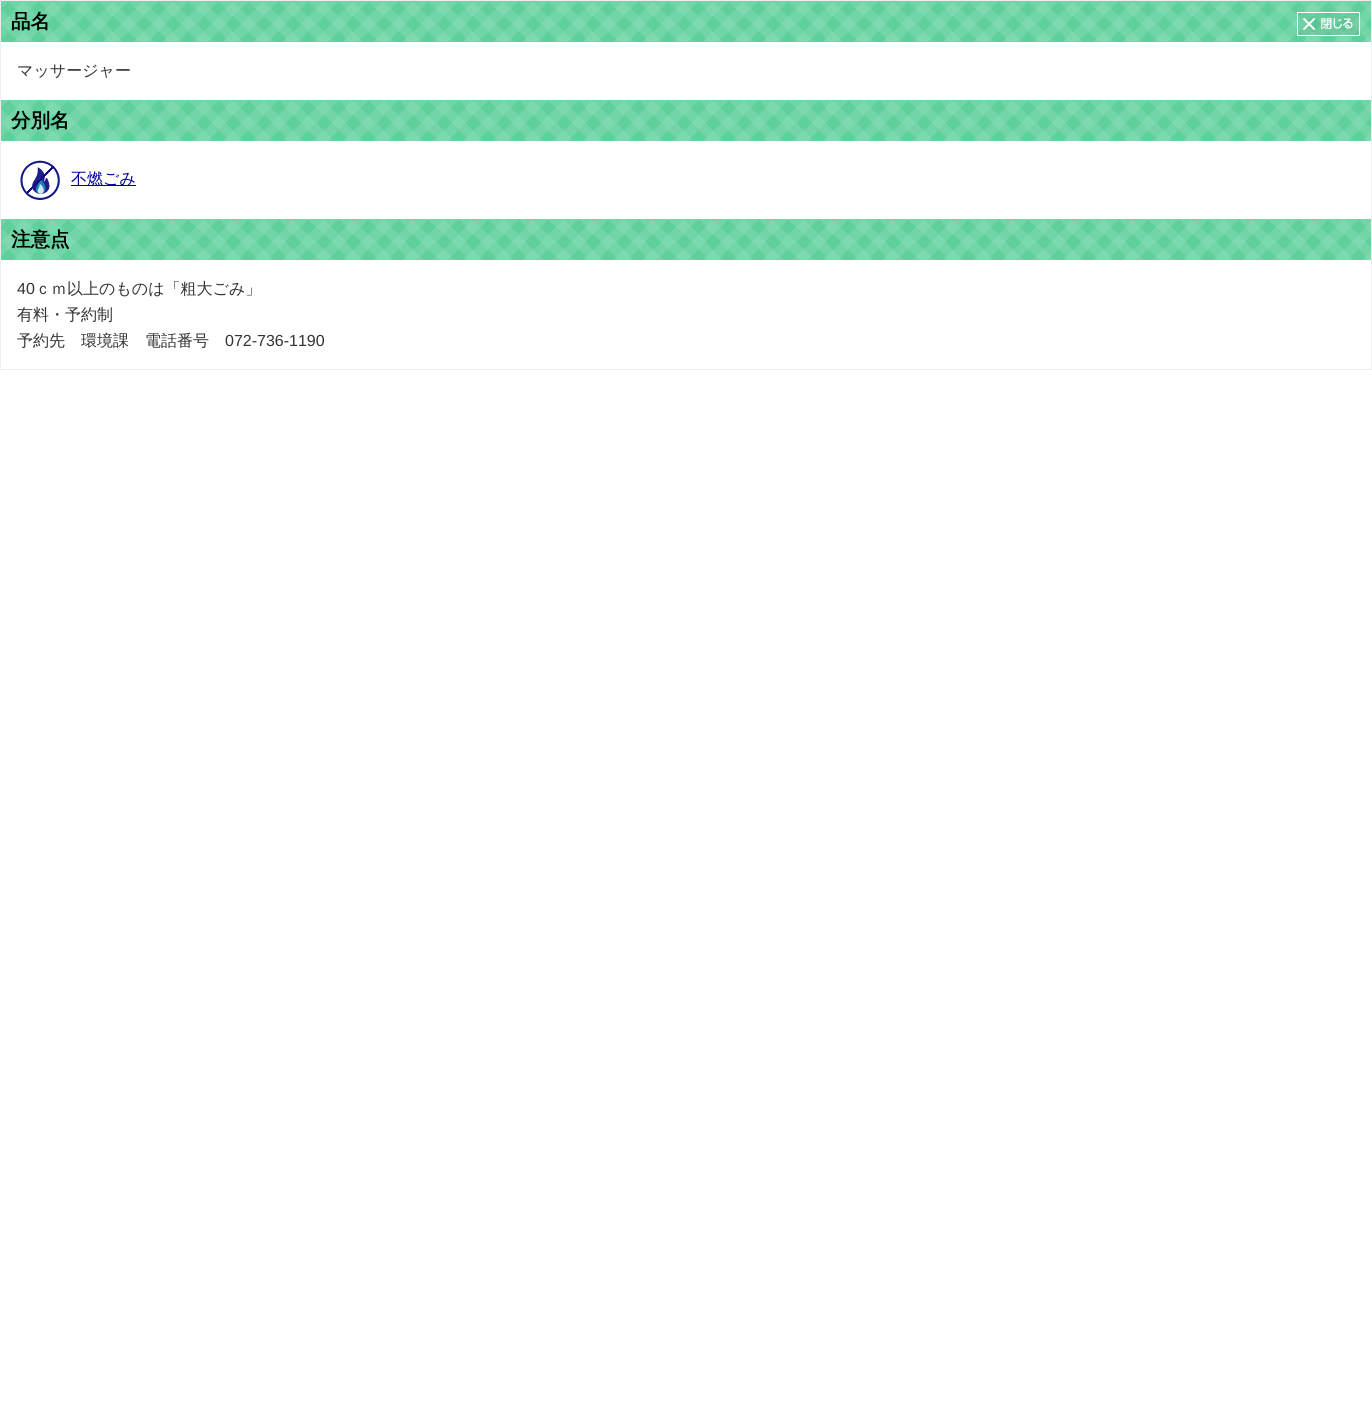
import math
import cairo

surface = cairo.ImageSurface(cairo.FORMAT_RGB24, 1372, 1403)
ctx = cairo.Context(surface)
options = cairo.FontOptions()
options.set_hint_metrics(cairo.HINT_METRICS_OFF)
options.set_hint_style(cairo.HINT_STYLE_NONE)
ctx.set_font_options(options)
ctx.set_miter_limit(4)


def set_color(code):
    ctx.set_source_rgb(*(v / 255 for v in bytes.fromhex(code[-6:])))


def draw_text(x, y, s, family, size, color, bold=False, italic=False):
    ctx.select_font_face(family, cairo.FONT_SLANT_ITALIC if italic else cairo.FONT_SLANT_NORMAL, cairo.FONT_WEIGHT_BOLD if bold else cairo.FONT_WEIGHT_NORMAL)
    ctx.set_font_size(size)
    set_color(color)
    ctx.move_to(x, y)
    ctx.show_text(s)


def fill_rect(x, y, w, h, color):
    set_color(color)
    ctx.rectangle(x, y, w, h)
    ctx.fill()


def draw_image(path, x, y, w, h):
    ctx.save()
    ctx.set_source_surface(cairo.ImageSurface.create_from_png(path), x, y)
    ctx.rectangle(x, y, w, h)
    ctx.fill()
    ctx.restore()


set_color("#ffffff")
ctx.paint()
ctx.rectangle(0.5, 0.5, 1371, 369)
set_color("#eeeeee")
ctx.set_line_width(1)
ctx.stroke()
draw_image("assets/img1.png", 1, 1, 1370, 41)
draw_text(11, 28, "品名", "WenQuanYi Zen Hei", 19.5, "#000000", bold=True)
draw_image("assets/img2.png", 1297, 12, 63, 24)
draw_text(17, 76, "マッサージャー", "WenQuanYi Zen Hei Medium", 16, "#333333")
draw_image("assets/img1.png", 1, 100, 1370, 41)
draw_text(11, 127, "分別名", "WenQuanYi Zen Hei", 19.5, "#000000", bold=True)
draw_image("assets/img3.png", 20, 160, 40, 40)
fill_rect(71, 185, 65, 1, "#000099")
draw_text(71, 184, "不燃ごみ", "WenQuanYi Zen Hei Medium", 16, "#000099")
draw_image("assets/img1.png", 1, 219, 1370, 41)
draw_text(11, 246, "注意点", "WenQuanYi Zen Hei", 19.5, "#000000", bold=True)
draw_text(17, 294, "40", "Liberation Sans", 16, "#333333")
draw_text(35, 294, "ｃｍ以上のものは「粗大ごみ」", "WenQuanYi Zen Hei Medium", 16, "#333333")
draw_text(17, 320, "有料・予約制", "WenQuanYi Zen Hei Medium", 16, "#333333")
draw_text(17, 346, "予約先　環境課　電話番号", "WenQuanYi Zen Hei Medium", 16, "#333333")
draw_text(225, 346, "072-736-1190", "Liberation Sans", 16, "#333333")
surface.write_to_png("output.png")
